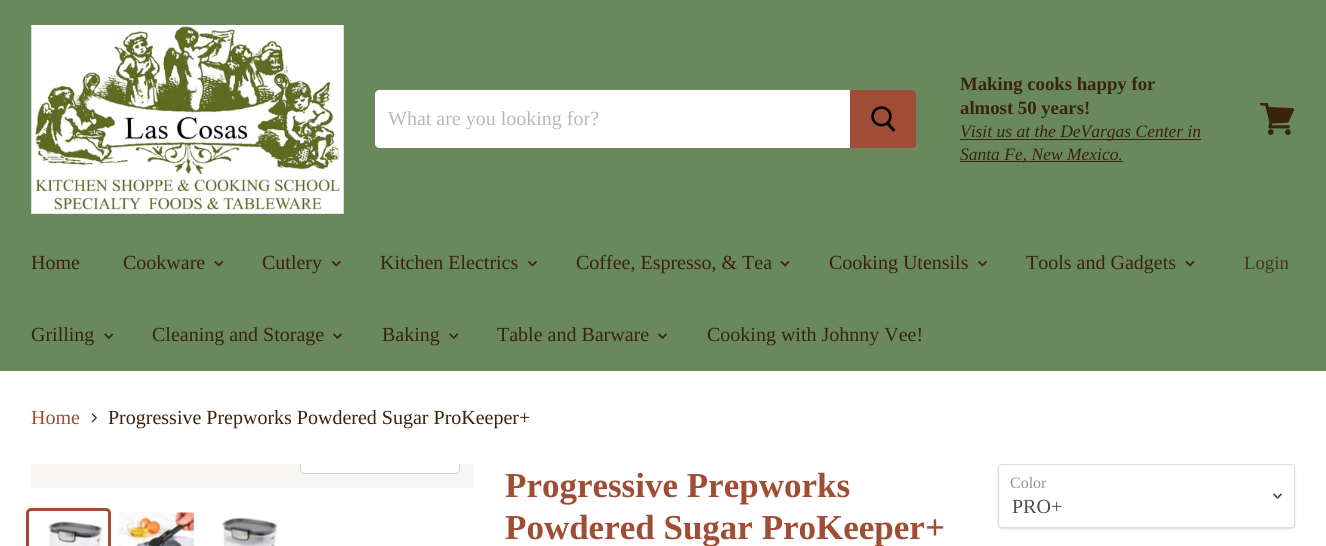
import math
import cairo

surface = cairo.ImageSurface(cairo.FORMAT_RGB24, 1326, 546)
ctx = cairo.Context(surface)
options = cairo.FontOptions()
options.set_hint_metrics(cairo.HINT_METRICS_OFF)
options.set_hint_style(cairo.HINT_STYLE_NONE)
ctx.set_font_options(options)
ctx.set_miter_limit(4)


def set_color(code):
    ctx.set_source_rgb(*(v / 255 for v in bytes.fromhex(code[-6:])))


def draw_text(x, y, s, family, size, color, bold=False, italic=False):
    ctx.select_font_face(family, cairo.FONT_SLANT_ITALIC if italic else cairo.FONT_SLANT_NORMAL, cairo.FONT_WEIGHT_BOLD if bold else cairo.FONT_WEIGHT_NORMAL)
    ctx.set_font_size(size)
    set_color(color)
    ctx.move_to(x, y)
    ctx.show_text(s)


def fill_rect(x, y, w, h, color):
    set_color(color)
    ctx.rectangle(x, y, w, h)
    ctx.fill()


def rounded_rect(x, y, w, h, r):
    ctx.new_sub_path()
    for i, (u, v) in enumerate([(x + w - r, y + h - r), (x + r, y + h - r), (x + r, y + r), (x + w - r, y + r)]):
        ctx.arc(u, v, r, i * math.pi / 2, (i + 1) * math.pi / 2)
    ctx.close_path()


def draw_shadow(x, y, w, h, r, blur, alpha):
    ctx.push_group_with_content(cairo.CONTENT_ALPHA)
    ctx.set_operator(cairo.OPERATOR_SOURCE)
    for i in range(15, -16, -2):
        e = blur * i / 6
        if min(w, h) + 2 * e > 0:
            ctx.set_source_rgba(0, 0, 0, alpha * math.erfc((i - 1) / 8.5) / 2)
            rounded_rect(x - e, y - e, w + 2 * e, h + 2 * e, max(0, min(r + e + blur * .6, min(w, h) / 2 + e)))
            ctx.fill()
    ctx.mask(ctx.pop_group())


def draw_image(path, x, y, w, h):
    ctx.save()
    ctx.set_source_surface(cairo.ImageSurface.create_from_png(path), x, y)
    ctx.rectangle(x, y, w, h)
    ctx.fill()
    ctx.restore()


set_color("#ffffff")
ctx.paint()
fill_rect(0, 0, 1326, 371, "#69885b")
draw_image("assets/img1.png", 31, 25, 313, 189)
rounded_rect(374.5, 89.5, 543, 59, 4.5)
set_color("#6e8663")
ctx.set_line_width(1)
ctx.stroke()
set_color("#ffffff")
ctx.new_path()
ctx.move_to(379, 90)
ctx.line_to(850, 90)
ctx.line_to(850, 148)
ctx.line_to(379, 148)
ctx.curve_to(377, 148, 375, 146, 375, 144)
ctx.line_to(375, 94)
ctx.curve_to(375, 92, 377, 90, 379, 90)
ctx.close_path()
ctx.fill()
draw_text(388, 125, "What are you looking for?", "Liberation Serif", 20, "#b8b8b8")
set_color("#9f4d34")
ctx.new_path()
ctx.move_to(850.5, 90.5)
ctx.line_to(912, 90.5)
ctx.curve_to(914, 90.5, 915.5, 92, 915.5, 94)
ctx.line_to(915.5, 144)
ctx.curve_to(915.5, 146, 914, 147.5, 912, 147.5)
ctx.line_to(850.5, 147.5)
ctx.close_path()
ctx.fill_preserve()
ctx.stroke()
draw_image("assets/img2.png", 871, 106, 25, 26)
draw_text(960, 90, "Making cooks happy for", "Liberation Serif", 18.75, "#39230c", bold=True)
draw_text(960, 114, "almost 50 years!", "Liberation Serif", 18.75, "#39230c", bold=True)
fill_rect(960, 139, 241, 1, "#39230c")
draw_text(960, 137, "Visit us at the DeVargas Center in", "Liberation Serif", 17.5, "#39230c", italic=True)
fill_rect(960, 161, 163, 1, "#39230c")
draw_text(960, 160, "Santa Fe, New Mexico.", "Liberation Serif", 17.5, "#39230c", italic=True)
draw_image("assets/img3.png", 1260, 103, 35, 32)
draw_text(31, 269, "Home", "Liberation Serif", 20, "#39230c")
draw_text(123, 269, "Cookware", "Liberation Serif", 20, "#39230c")
draw_image("assets/img4.png", 214, 260, 10, 7)
draw_text(262, 269, "Cutlery", "Liberation Serif", 20, "#39230c")
draw_image("assets/img5.png", 331, 260, 10, 7)
draw_text(380, 269, "Kitchen Electrics", "Liberation Serif", 20, "#39230c")
draw_image("assets/img6.png", 528, 260, 9, 7)
draw_text(576, 269, "Coffee, Espresso, & Tea", "Liberation Serif", 20, "#39230c")
draw_image("assets/img7.png", 780, 260, 10, 7)
draw_text(829, 269, "Cooking Utensils", "Liberation Serif", 20, "#39230c")
draw_image("assets/img6.png", 978, 260, 9, 7)
draw_text(1026, 269, "Tools and Gadgets", "Liberation Serif", 20, "#39230c")
draw_image("assets/img7.png", 1185, 260, 10, 7)
draw_text(31, 341, "Grilling", "Liberation Serif", 20, "#39230c")
draw_image("assets/img8.png", 104, 333, 10, 7)
draw_text(152, 341, "Cleaning and Storage", "Liberation Serif", 20, "#39230c")
draw_image("assets/img9.png", 333, 333, 9, 7)
draw_text(382, 341, "Baking", "Liberation Serif", 20, "#39230c")
draw_image("assets/img8.png", 449, 333, 10, 7)
draw_text(497, 341, "Table and Barware", "Liberation Serif", 20, "#39230c")
draw_image("assets/img9.png", 658, 333, 9, 7)
draw_text(707, 341, "Cooking with Johnny Vee!", "Liberation Serif", 20, "#39230c")
draw_text(1244, 269, "Login", "Liberation Serif", 18.75, "#43371c")
draw_text(31, 424, "Home", "Liberation Serif", 20, "#9f4d34")
draw_image("assets/img10.png", 91, 413, 6, 10)
draw_text(108, 424, "Progressive Prepworks Powdered Sugar ProKeeper+", "Liberation Serif", 20, "#39230c")
fill_rect(31, 464, 443, 24, "#f7f6f5")
ctx.save()
ctx.rectangle(31, 464, 443, 24)
ctx.clip()
rounded_rect(300.5, 436.5, 159, 37, 4.5)
set_color("#d2d1d0")
ctx.stroke()
ctx.restore()
ctx.set_source_rgba(1, 1, 1, 0.9)
ctx.new_path()
ctx.move_to(301, 464)
ctx.line_to(459, 464)
ctx.line_to(459, 469)
ctx.curve_to(459, 471, 457, 473, 455, 473)
ctx.line_to(305, 473)
ctx.curve_to(303, 473, 301, 471, 301, 469)
ctx.close_path()
ctx.fill()
rounded_rect(27.5, 509.5, 82, 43, 3.5)
set_color("#9f4d34")
ctx.set_line_width(3)
ctx.stroke()
draw_image("assets/img11.png", 47, 521, 56, 25)
draw_image("assets/img12.png", 118, 512, 76, 34)
draw_image("assets/img13.png", 222, 517, 56, 29)
draw_text(505, 497, "Progressive Prepworks", "Liberation Serif", 35, "#9f4d34", bold=True)
draw_text(505, 539, "Powdered Sugar ProKeeper+", "Liberation Serif", 35, "#9f4d34", bold=True)
set_color("#000000")
draw_shadow(998, 465, 297, 64, 4, 1, 0.15)
set_color("#ffffff")
rounded_rect(998.5, 464.5, 296, 63, 3.5)
ctx.fill_preserve()
set_color("#dddddd")
ctx.set_line_width(1)
ctx.stroke()
draw_text(1010, 488, "Color", "Liberation Serif", 16, "#949494")
draw_image("assets/img14.png", 1273, 493, 9, 7)
draw_text(1012, 513, "PRO+", "Liberation Serif", 20, "#4d4d4d")
surface.write_to_png("output.png")
